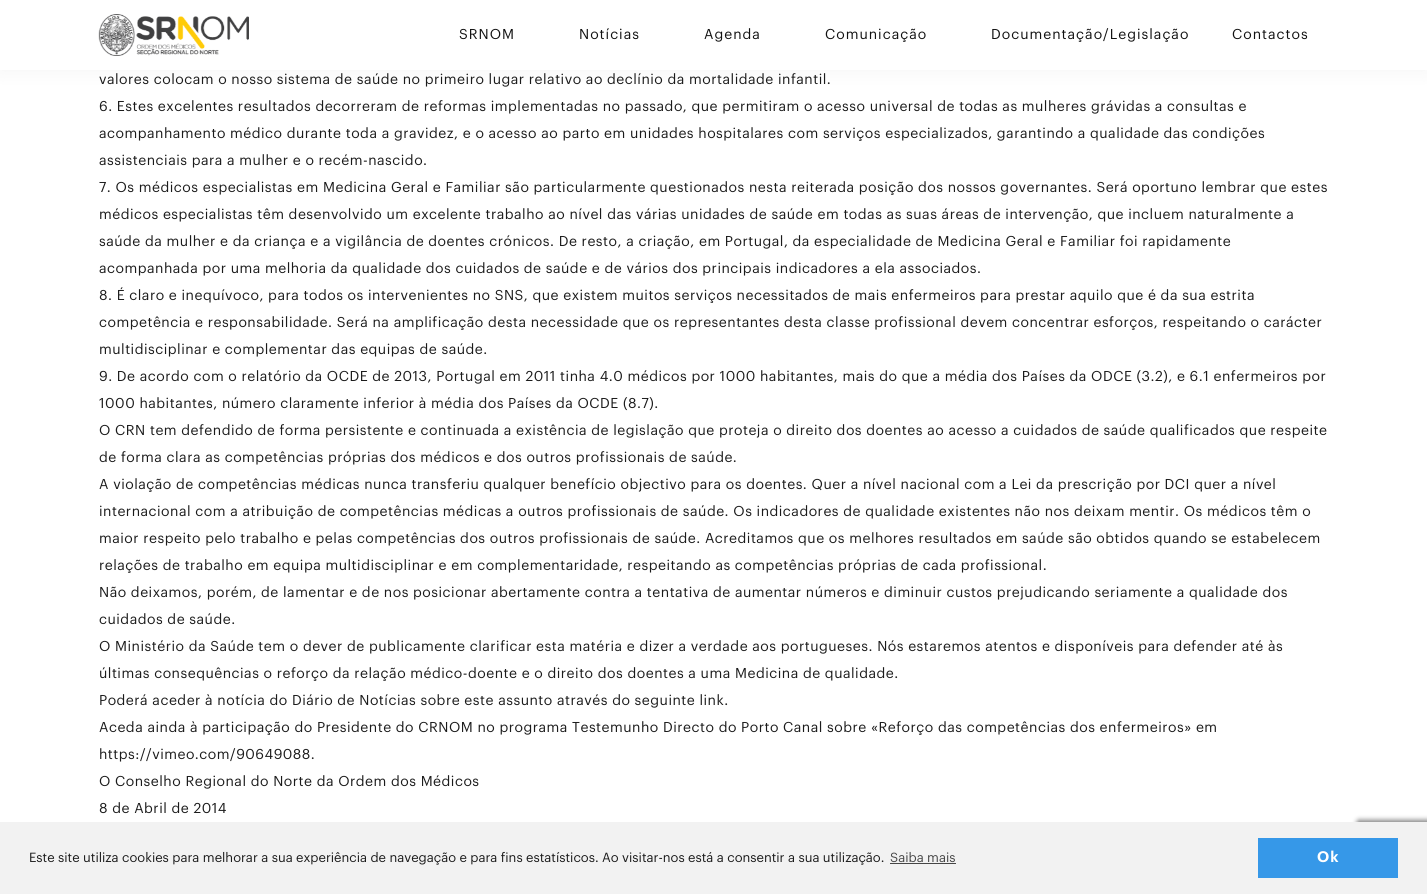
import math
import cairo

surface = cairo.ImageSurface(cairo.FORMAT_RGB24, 1427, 894)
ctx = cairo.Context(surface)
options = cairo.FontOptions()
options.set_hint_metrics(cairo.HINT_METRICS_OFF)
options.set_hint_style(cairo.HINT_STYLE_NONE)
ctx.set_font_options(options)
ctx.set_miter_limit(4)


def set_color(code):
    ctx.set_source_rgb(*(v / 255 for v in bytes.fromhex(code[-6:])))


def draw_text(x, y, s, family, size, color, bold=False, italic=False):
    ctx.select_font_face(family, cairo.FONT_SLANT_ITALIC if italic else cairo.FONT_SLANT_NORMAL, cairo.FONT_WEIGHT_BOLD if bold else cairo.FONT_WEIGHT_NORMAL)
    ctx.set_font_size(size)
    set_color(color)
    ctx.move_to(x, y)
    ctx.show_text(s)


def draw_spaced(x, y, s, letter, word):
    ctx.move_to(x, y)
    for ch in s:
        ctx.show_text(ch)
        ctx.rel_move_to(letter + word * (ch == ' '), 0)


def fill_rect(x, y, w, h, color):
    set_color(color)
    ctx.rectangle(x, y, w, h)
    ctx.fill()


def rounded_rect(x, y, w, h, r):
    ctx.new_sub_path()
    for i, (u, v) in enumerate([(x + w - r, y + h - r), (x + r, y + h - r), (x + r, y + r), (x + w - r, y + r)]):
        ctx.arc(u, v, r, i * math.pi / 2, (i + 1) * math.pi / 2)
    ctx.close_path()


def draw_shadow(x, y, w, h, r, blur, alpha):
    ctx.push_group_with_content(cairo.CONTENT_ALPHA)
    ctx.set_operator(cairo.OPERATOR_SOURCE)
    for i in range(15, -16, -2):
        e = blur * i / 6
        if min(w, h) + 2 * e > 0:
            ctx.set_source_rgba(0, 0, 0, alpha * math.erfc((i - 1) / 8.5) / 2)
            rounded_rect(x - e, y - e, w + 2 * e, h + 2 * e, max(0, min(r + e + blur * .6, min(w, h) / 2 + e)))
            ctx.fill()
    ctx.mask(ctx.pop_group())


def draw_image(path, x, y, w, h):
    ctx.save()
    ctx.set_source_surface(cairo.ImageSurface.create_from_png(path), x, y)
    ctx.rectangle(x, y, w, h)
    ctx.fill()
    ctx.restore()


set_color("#ffffff")
ctx.paint()
set_color("#000000")
draw_shadow(0, 0, 1427, 70, 0, 10, 0.05)
fill_rect(0, 0, 1427, 70, "#ffffff")
draw_image("assets/img1.png", 98, 14, 151, 42)
ctx.select_font_face("Graphik")
ctx.set_font_size(14)
set_color("#111111")
draw_spaced(459, 39, "SRNOM", 1, 0)
draw_spaced(579, 39, "Notícias", 1, 0)
draw_spaced(704, 39, "Agenda", 1, 0)
draw_spaced(825, 39, "Comunicação", 1, 0)
draw_spaced(991, 39, "Documentação/Legislação", 1, 0)
draw_spaced(1232, 39, "Contactos", 1, 0)
set_color("#1b1b1b")
draw_spaced(99, 84, "valores colocam o nosso sistema de saúde no primeiro lugar relativo ao declínio da mortalidade infantil.", 0.5, 0)
draw_spaced(99, 111, "6. Estes excelentes resultados decorreram de reformas implementadas no passado, que permitiram o acesso universal de todas as mulheres grávidas a consultas e", 0.5, 0)
draw_spaced(99, 138, "acompanhamento médico durante toda a gravidez, e o acesso ao parto em unidades hospitalares com serviços especializados, garantindo a qualidade das condições", 0.5, 0)
draw_spaced(99, 165, "assistenciais para a mulher e o recém-nascido.", 0.5, 0)
draw_spaced(99, 192, "7. Os médicos especialistas em Medicina Geral e Familiar são particularmente questionados nesta reiterada posição dos nossos governantes. Será oportuno lembrar que estes", 0.5, 0)
draw_spaced(99, 219, "médicos especialistas têm desenvolvido um excelente trabalho ao nível das várias unidades de saúde em todas as suas áreas de intervenção, que incluem naturalmente a", 0.5, 0)
draw_spaced(99, 246, "saúde da mulher e da criança e a vigilância de doentes crónicos. De resto, a criação, em Portugal, da especialidade de Medicina Geral e Familiar foi rapidamente", 0.5, 0)
draw_spaced(99, 273, "acompanhada por uma melhoria da qualidade dos cuidados de saúde e de vários dos principais indicadores a ela associados.", 0.5, 0)
draw_spaced(99, 300, "8. É claro e inequívoco, para todos os intervenientes no SNS, que existem muitos serviços necessitados de mais enfermeiros para prestar aquilo que é da sua estrita", 0.5, 0)
draw_spaced(99, 327, "competência e responsabilidade. Será na amplificação desta necessidade que os representantes desta classe profissional devem concentrar esforços, respeitando o carácter", 0.5, 0)
draw_spaced(99, 354, "multidisciplinar e complementar das equipas de saúde.", 0.5, 0)
draw_spaced(99, 381, "9. De acordo com o relatório da OCDE de 2013, Portugal em 2011 tinha 4.0 médicos por 1000 habitantes, mais do que a média dos Países da ODCE (3.2), e 6.1 enfermeiros por", 0.5, 0)
draw_spaced(99, 408, "1000 habitantes, número claramente inferior à média dos Países da OCDE (8.7).", 0.5, 0)
draw_spaced(99, 435, "O CRN tem defendido de forma persistente e continuada a existência de legislação que proteja o direito dos doentes ao acesso a cuidados de saúde qualificados que respeite", 0.5, 0)
draw_spaced(99, 462, "de forma clara as competências próprias dos médicos e dos outros profissionais de saúde.", 0.5, 0)
draw_spaced(99, 489, "A violação de competências médicas nunca transferiu qualquer benefício objectivo para os doentes. Quer a nível nacional com a Lei da prescrição por DCI quer a nível", 0.5, 0)
draw_spaced(99, 516, "internacional com a atribuição de competências médicas a outros profissionais de saúde. Os indicadores de qualidade existentes não nos deixam mentir. Os médicos têm o", 0.5, 0)
draw_spaced(99, 543, "maior respeito pelo trabalho e pelas competências dos outros profissionais de saúde. Acreditamos que os melhores resultados em saúde são obtidos quando se estabelecem", 0.5, 0)
draw_spaced(99, 570, "relações de trabalho em equipa multidisciplinar e em complementaridade, respeitando as competências próprias de cada profissional.", 0.5, 0)
draw_spaced(99, 597, "Não deixamos, porém, de lamentar e de nos posicionar abertamente contra a tentativa de aumentar números e diminuir custos prejudicando seriamente a qualidade dos", 0.5, 0)
draw_spaced(99, 624, "cuidados de saúde.", 0.5, 0)
draw_spaced(99, 651, "O Ministério da Saúde tem o dever de publicamente clarificar esta matéria e dizer a verdade aos portugueses. Nós estaremos atentos e disponíveis para defender até às", 0.5, 0)
draw_spaced(99, 678, "últimas consequências o reforço da relação médico-doente e o direito dos doentes a uma Medicina de qualidade.", 0.5, 0)
draw_spaced(99, 705, "Poderá aceder à notícia do Diário de Notícias sobre este assunto através do seguinte link.", 0.5, 0)
draw_spaced(99, 732, "Aceda ainda à participação do Presidente do CRNOM no programa Testemunho Directo do Porto Canal sobre «Reforço das competências dos enfermeiros» em", 0.5, 0)
draw_spaced(99, 759, "https://vimeo.com/90649088.", 0.5, 0)
draw_spaced(99, 786, "O Conselho Regional do Norte da Ordem dos Médicos", 0.5, 0)
draw_spaced(99, 813, "8 de Abril de 2014", 0.5, 0)
set_color("#808080")
draw_shadow(1357, 820, 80, 60, 2, 2.5, 1)
fill_rect(0, 822, 1427, 72, "#f2f2f2")
draw_text(29, 862, "Este site utiliza cookies para melhorar a sua experiência de navegação e para fins estatísticos. Ao visitar-nos está a consentir a sua utilização.", "Graphik", 13, "#1b1b1b")
draw_text(890, 862, "Saiba mais", "Graphik", 13, "#464646")
fill_rect(890, 863, 66, 1, "#464646")
fill_rect(1258, 838, 140, 40, "#3698e8")
ctx.select_font_face("Graphik SemiBold")
ctx.set_font_size(15)
set_color("#ffffff")
draw_spaced(1317, 862, "Ok", 1, 0)
surface.write_to_png("output.png")
